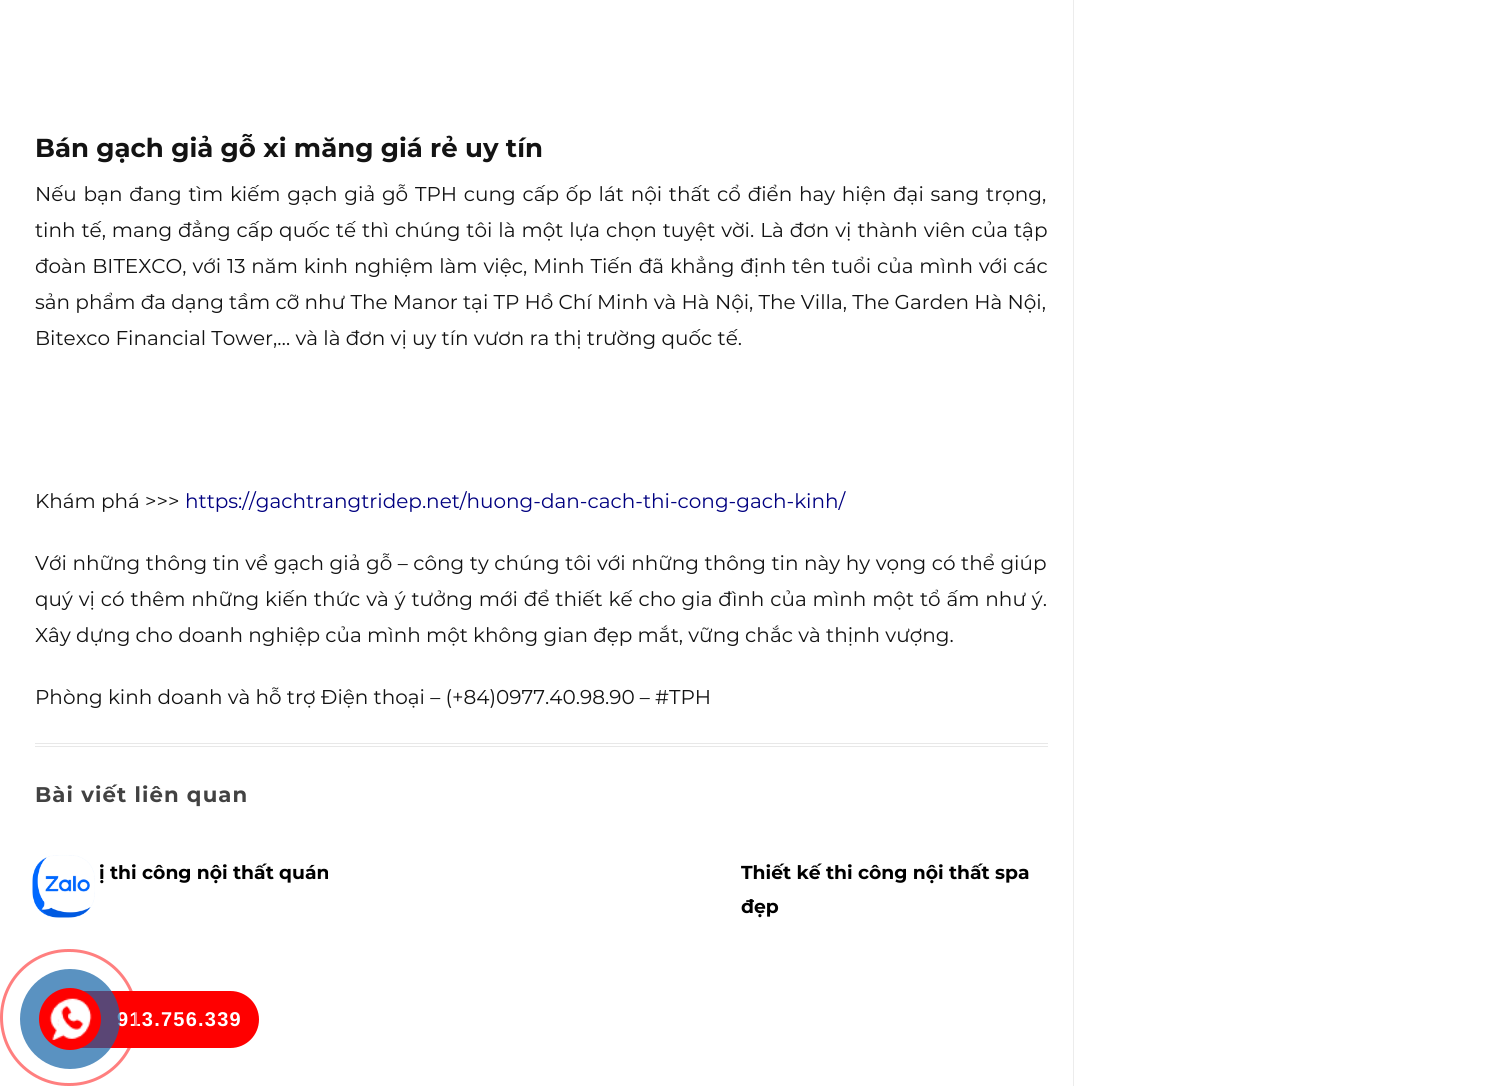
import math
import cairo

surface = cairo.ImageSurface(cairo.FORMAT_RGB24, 1494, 1086)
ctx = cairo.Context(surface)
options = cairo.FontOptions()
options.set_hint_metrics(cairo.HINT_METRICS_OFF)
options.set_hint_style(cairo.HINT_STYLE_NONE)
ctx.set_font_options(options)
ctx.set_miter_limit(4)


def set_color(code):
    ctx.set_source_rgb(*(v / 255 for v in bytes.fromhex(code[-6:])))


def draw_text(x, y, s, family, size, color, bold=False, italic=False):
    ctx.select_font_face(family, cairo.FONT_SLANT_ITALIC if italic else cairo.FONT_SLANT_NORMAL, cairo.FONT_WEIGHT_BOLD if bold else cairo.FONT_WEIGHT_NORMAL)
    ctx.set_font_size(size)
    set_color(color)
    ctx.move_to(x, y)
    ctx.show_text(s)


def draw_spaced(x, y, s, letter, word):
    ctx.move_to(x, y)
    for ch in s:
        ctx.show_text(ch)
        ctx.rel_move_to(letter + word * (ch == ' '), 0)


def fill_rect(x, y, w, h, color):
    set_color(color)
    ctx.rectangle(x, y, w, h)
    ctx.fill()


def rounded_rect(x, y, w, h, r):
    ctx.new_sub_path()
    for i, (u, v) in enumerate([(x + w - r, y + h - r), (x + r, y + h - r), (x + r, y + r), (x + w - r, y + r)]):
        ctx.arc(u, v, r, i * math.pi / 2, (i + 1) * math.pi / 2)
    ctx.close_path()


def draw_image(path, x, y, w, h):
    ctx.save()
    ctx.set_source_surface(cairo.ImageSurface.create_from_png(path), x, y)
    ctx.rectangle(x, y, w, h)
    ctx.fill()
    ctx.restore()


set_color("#ffffff")
ctx.paint()
draw_text(35, 157, "Bán gạch giả gỗ xi măng giá rẻ uy tín", "Montserrat", 26, "#131313", bold=True)
ctx.select_font_face("Montserrat")
ctx.set_font_size(20)
draw_spaced(35, 201, "Nếu bạn đang tìm kiếm gạch giả gỗ TPH cung cấp ốp lát nội thất cổ điển hay hiện đại sang trọng,", 0, 1.5)
draw_spaced(35, 237, "tinh tế, mang đẳng cấp quốc tế thì chúng tôi là một lựa chọn tuyệt vời. Là đơn vị thành viên của tập", 0, 0.7)
draw_spaced(35, 273, "đoàn BITEXCO, với 13 năm kinh nghiệm làm việc, Minh Tiến đã khẳng định tên tuổi của mình với các", 0, 0.6)
draw_text(35, 309, "sản phẩm đa dạng tầm cỡ như The Manor tại TP Hồ Chí Minh và Hà Nội, The Villa, The Garden Hà Nội,", "Montserrat", 20, "#131313")
draw_text(35, 345, "Bitexco Financial Tower,… và là đơn vị uy tín vươn ra thị trường quốc tế.", "Montserrat", 20, "#131313")
draw_text(35, 508, "Khám phá >>>", "Montserrat", 20, "#131313")
draw_text(185, 508, "https://gachtrangtridep.net/huong-dan-cach-thi-cong-gach-kinh/", "Montserrat", 20, "#000080")
set_color("#131313")
draw_spaced(35, 570, "Với những thông tin về gạch giả gỗ – công ty chúng tôi với những thông tin này hy vọng có thể giúp", 0, 0.3)
draw_spaced(35, 606, "quý vị có thêm những kiến thức và ý tưởng mới để thiết kế cho gia đình của mình một tổ ấm như ý.", 0, 0.65)
draw_text(35, 642, "Xây dựng cho doanh nghiệp của mình một không gian đẹp mắt, vững chắc và thịnh vượng.", "Montserrat", 20, "#131313")
draw_text(35, 704, "Phòng kinh doanh và hỗ trợ Điện thoại – (+84)0977.40.98.90 – #TPH", "Montserrat", 20, "#131313")
fill_rect(35, 743, 1013, 1, "#e8e8e8")
fill_rect(35, 746, 1013, 1, "#e8e8e8")
ctx.select_font_face("Montserrat", cairo.FONT_SLANT_NORMAL, cairo.FONT_WEIGHT_BOLD)
ctx.set_font_size(21.25)
set_color("#424242")
draw_spaced(35, 802, "Bài viết liên quan", 1.1, 0)
draw_text(99, 879, "ị thi công nội thất quán", "Montserrat", 18.75, "#000000", bold=True)
draw_text(741, 879, "Thiết kế thi công nội thất spa", "Montserrat", 18.75, "#000000", bold=True)
draw_text(741, 913, "đẹp", "Montserrat", 18.75, "#000000", bold=True)
fill_rect(1073, 0, 1, 1086, "#ececec")
draw_image("assets/img1.png", 32, 855, 63, 63)
set_color("#ff0000")
rounded_rect(53, 991, 206, 57, 28.5)
ctx.fill()
ctx.select_font_face("Liberation Sans", cairo.FONT_SLANT_NORMAL, cairo.FONT_WEIGHT_BOLD)
ctx.set_font_size(20)
set_color("#ffffff")
draw_spaced(117, 1026, "913.756.339", 1.25, 0)
rounded_rect(1.5, 950.5, 135, 134, 67)
ctx.set_source_rgba(1, 0, 0, 0.5)
ctx.set_line_width(3)
ctx.stroke()
ctx.set_source_rgba(0.082, 0.392, 0.655, 0.7)
ctx.arc(70, 1019, 50, 0, 2 * math.pi)
ctx.fill()
set_color("#ff0000")
ctx.arc(70, 1019, 31, 0, 2 * math.pi)
ctx.fill()
draw_image("assets/img2.png", 49, 998, 43, 42)
surface.write_to_png("output.png")
